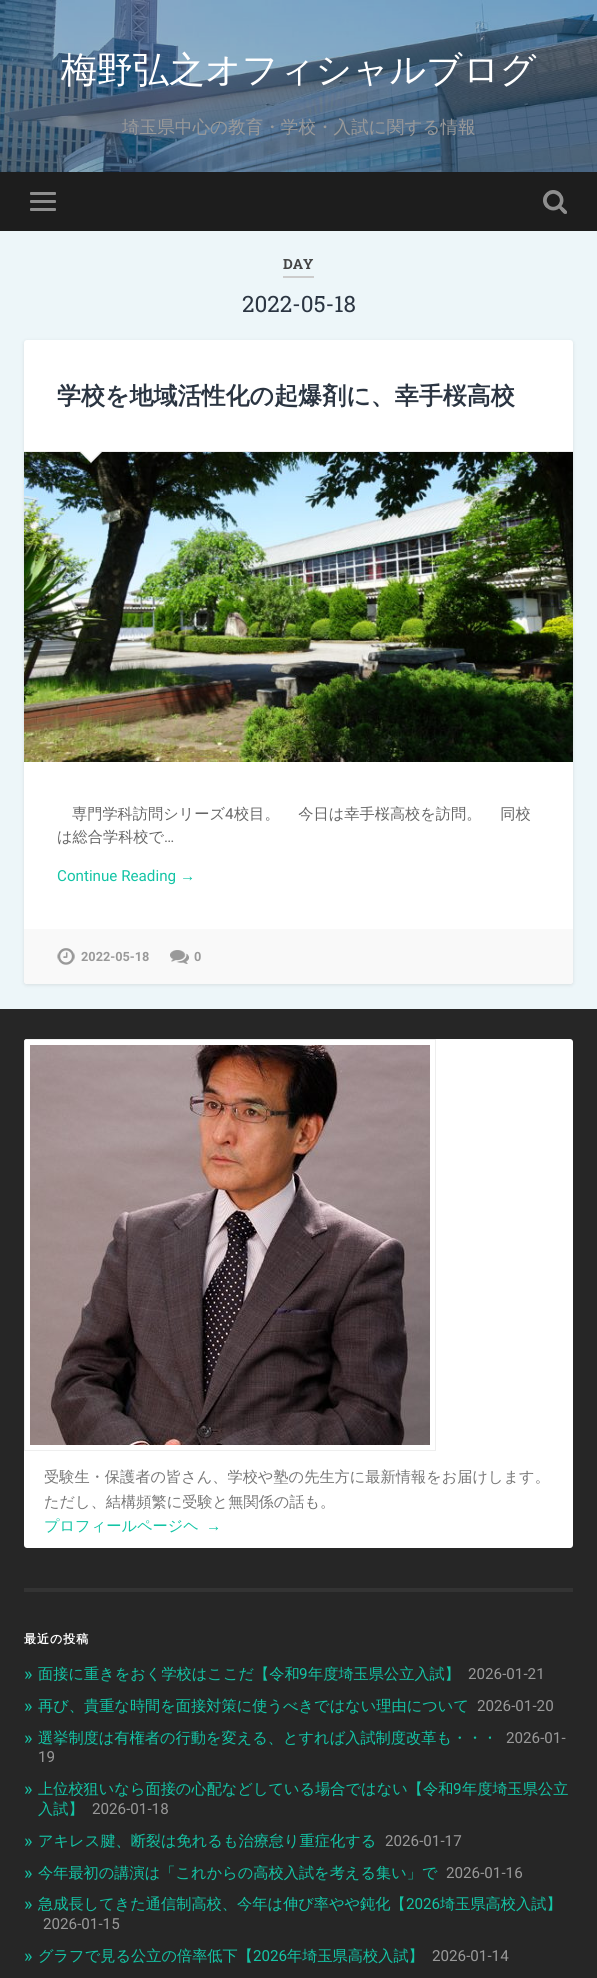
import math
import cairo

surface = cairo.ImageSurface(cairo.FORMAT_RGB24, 597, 1978)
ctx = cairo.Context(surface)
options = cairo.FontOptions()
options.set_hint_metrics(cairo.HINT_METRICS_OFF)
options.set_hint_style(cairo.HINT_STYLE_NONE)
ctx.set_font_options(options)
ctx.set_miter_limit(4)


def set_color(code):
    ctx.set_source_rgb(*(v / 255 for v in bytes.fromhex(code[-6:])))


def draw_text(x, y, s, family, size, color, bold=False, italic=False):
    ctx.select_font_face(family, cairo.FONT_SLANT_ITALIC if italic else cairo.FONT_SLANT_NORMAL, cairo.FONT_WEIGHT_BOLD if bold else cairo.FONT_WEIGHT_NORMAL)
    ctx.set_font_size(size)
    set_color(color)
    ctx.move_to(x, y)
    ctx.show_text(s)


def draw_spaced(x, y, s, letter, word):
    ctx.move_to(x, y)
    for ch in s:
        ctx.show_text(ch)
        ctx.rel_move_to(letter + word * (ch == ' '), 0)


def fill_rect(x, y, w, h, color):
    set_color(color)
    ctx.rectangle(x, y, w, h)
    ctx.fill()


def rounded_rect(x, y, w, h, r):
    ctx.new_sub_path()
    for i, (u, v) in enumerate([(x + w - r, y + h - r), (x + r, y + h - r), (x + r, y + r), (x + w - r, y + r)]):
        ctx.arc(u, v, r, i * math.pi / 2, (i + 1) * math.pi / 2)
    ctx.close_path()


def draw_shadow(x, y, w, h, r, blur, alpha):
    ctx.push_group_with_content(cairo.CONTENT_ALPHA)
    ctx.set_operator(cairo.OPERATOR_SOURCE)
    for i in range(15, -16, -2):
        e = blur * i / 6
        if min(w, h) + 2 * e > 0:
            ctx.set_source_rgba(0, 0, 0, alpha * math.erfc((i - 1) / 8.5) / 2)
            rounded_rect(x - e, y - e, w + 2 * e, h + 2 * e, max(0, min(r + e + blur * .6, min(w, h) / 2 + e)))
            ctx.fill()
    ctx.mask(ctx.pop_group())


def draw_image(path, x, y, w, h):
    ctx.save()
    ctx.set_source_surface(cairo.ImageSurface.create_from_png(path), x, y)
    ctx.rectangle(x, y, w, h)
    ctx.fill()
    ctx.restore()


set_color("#edf6f9")
ctx.paint()
draw_image("assets/img1.png", 0, 0, 597, 172)
draw_text(61, 82, "梅野弘之オフィシャルブログ", "WenQuanYi Zen Hei Medium", 36, "#ffffff")
draw_text(122, 133, "埼玉県中心の教育・学校・入試に関する情報", "WenQuanYi Zen Hei Medium", 17.6, "#999999")
fill_rect(0, 172, 597, 59, "#1d1d1d")
set_color("#8e8e8e")
rounded_rect(30, 192, 26, 3, 1)
ctx.fill()
rounded_rect(30, 200, 26, 3, 1)
ctx.fill()
rounded_rect(30, 208, 26, 3, 1)
ctx.fill()
draw_image("assets/img2.png", 543, 190, 24, 24)
fill_rect(283, 276, 31, 2, "#cccccc")
draw_text(283, 269, "DAY", "Roboto Slab", 14, "#444444", bold=True)
draw_text(242, 312, "2022-05-18", "Roboto Slab", 22.5, "#2b3542")
set_color("#000000")
draw_shadow(24, 341, 549, 644, 3, 2, 0.1)
set_color("#ffffff")
rounded_rect(24, 340, 549, 644, 3)
ctx.fill()
fill_rect(24, 451, 549, 1, "#eeeeee")
draw_text(57, 404, "学校を地域活性化の起爆剤に、幸手桜高校", "WenQuanYi Zen Hei", 24, "#2b3542", bold=True)
draw_image("assets/img3.png", 24, 452, 549, 310)
set_color("#eeeeee")
ctx.new_path()
ctx.move_to(79, 451)
ctx.line_to(103, 451)
ctx.line_to(91, 463)
ctx.close_path()
ctx.fill()
set_color("#ffffff")
ctx.new_path()
ctx.move_to(80, 450)
ctx.line_to(102, 450)
ctx.line_to(91, 461)
ctx.close_path()
ctx.fill()
draw_text(72, 819, "専門学科訪問シリーズ", "WenQuanYi Zen Hei Medium", 15.2, "#666666")
draw_text(225, 819, "4", "Roboto", 15.2, "#666666")
ctx.select_font_face("WenQuanYi Zen Hei Medium")
draw_spaced(234, 819, "校目。 　今日は幸手桜高校を訪問。 　同校", 0, -1)
draw_text(57, 842, "は総合学科校で", "WenQuanYi Zen Hei Medium", 15.2, "#666666")
draw_text(164, 842, "…", "Roboto", 15.2, "#666666")
draw_text(57, 881, "Continue Reading", "Roboto", 15.2, "#13c4a5")
draw_text(180, 881, "→", "Liberation Sans", 15.2, "#13c4a5")
set_color("#f9f9f9")
ctx.new_path()
ctx.move_to(24, 929)
ctx.line_to(573, 929)
ctx.line_to(573, 981)
ctx.curve_to(573, 982.5, 571.5, 984, 570, 984)
ctx.line_to(27, 984)
ctx.curve_to(25.5, 984, 24, 982.5, 24, 981)
ctx.close_path()
ctx.fill()
draw_image("assets/img4.png", 57, 948, 18, 17)
draw_text(81, 961, "2022-05-18", "Roboto", 12.75, "#999999", bold=True)
draw_image("assets/img5.png", 170, 950, 19, 14)
draw_text(194, 961, "0", "Roboto", 12.75, "#999999", bold=True)
fill_rect(0, 1009, 597, 969, "#262626")
set_color("#ffffff")
rounded_rect(24, 1039, 549, 509, 3)
ctx.fill()
set_color("#eeeeee")
ctx.set_fill_rule(cairo.FILL_RULE_EVEN_ODD)
ctx.new_path()
ctx.move_to(27, 1039)
ctx.curve_to(25, 1039, 24, 1040, 24, 1042)
ctx.line_to(24, 1451)
ctx.line_to(436, 1451)
ctx.line_to(436, 1039)
ctx.close_path()
ctx.move_to(25, 1040)
ctx.line_to(25, 1450)
ctx.line_to(435, 1450)
ctx.line_to(435, 1040)
ctx.close_path()
ctx.fill()
draw_image("assets/img6.png", 30, 1045, 400, 400)
draw_text(44, 1482, "受験生・保護者の皆さん、学校や塾の先生方に最新情報をお届けします。", "WenQuanYi Zen Hei Medium", 15.2, "#767676")
draw_text(44, 1507, "ただし、結構頻繁に受験と無関係の話も。", "WenQuanYi Zen Hei Medium", 15.2, "#767676")
draw_text(44, 1531, "プロフィールページヘ", "WenQuanYi Zen Hei Medium", 15.2, "#13c4a5")
draw_text(206, 1531, "→", "Liberation Sans", 15.2, "#13c4a5")
fill_rect(24, 1588, 549, 4, "#333333")
ctx.select_font_face("WenQuanYi Zen Hei", cairo.FONT_SLANT_NORMAL, cairo.FONT_WEIGHT_BOLD)
ctx.set_font_size(12)
set_color("#ffffff")
draw_spaced(24, 1643, "最近の投稿", 1, 0)
draw_text(24, 1680, "»", "Roboto", 18, "#13c4a5")
draw_text(38, 1679, "面接に重きをおく学校はここだ【令和", "WenQuanYi Zen Hei Medium", 15.2, "#13c4a5")
draw_text(299, 1679, "9", "Roboto", 15.2, "#13c4a5")
draw_text(308, 1679, "年度埼玉県公立入試】", "WenQuanYi Zen Hei Medium", 15.2, "#13c4a5")
draw_text(468, 1679, "2026-01-21", "Roboto", 15.2, "#999999")
draw_text(24, 1712, "»", "Roboto", 18, "#13c4a5")
draw_text(38, 1711, "再び、貴重な時間を面接対策に使うべきではない理由について", "WenQuanYi Zen Hei Medium", 15.2, "#13c4a5")
draw_text(477, 1711, "2026-01-20", "Roboto", 15.2, "#999999")
draw_text(24, 1744, "»", "Roboto", 18, "#13c4a5")
draw_text(38, 1743, "選挙制度は有権者の行動を変える、とすれば入試制度改革も・・・", "WenQuanYi Zen Hei Medium", 15.2, "#13c4a5")
draw_text(506, 1743, "2026-01-", "Roboto", 15.2, "#999999")
draw_text(38, 1762, "19", "Roboto", 15.2, "#999999")
draw_text(24, 1795, "»", "Roboto", 18, "#13c4a5")
draw_text(38, 1794, "上位校狙いなら面接の心配などしている場合ではない【令和", "WenQuanYi Zen Hei Medium", 15.2, "#13c4a5")
draw_text(453, 1794, "9", "Roboto", 15.2, "#13c4a5")
draw_text(462, 1794, "年度埼玉県公立", "WenQuanYi Zen Hei Medium", 15.2, "#13c4a5")
draw_text(38, 1814, "入試】", "WenQuanYi Zen Hei Medium", 15.2, "#13c4a5")
draw_text(92, 1814, "2026-01-18", "Roboto", 15.2, "#999999")
draw_text(24, 1847, "»", "Roboto", 18, "#13c4a5")
draw_text(38, 1846, "アキレス腱、断裂は免れるも治療怠り重症化する", "WenQuanYi Zen Hei Medium", 15.2, "#13c4a5")
draw_text(385, 1846, "2026-01-17", "Roboto", 15.2, "#999999")
draw_text(24, 1879, "»", "Roboto", 18, "#13c4a5")
draw_text(38, 1878, "今年最初の講演は「これからの高校入試を考える集い」で", "WenQuanYi Zen Hei Medium", 15.2, "#13c4a5")
draw_text(446, 1878, "2026-01-16", "Roboto", 15.2, "#999999")
draw_text(24, 1910, "»", "Roboto", 18, "#13c4a5")
draw_text(38, 1909, "急成長してきた通信制高校、今年は伸び率やや鈍化【", "WenQuanYi Zen Hei Medium", 15.2, "#13c4a5")
draw_text(406, 1909, "2026", "Roboto", 15.2, "#13c4a5")
draw_text(440, 1909, "埼玉県高校入試】", "WenQuanYi Zen Hei Medium", 15.2, "#13c4a5")
draw_text(43, 1929, "2026-01-15", "Roboto", 15.2, "#999999")
draw_text(24, 1962, "»", "Roboto", 18, "#13c4a5")
draw_text(38, 1961, "グラフで見る公立の倍率低下【", "WenQuanYi Zen Hei Medium", 15.2, "#13c4a5")
draw_text(253, 1961, "2026", "Roboto", 15.2, "#13c4a5")
draw_text(287, 1961, "年埼玉県高校入試】", "WenQuanYi Zen Hei Medium", 15.2, "#13c4a5")
draw_text(432, 1961, "2026-01-14", "Roboto", 15.2, "#999999")
surface.write_to_png("output.png")
